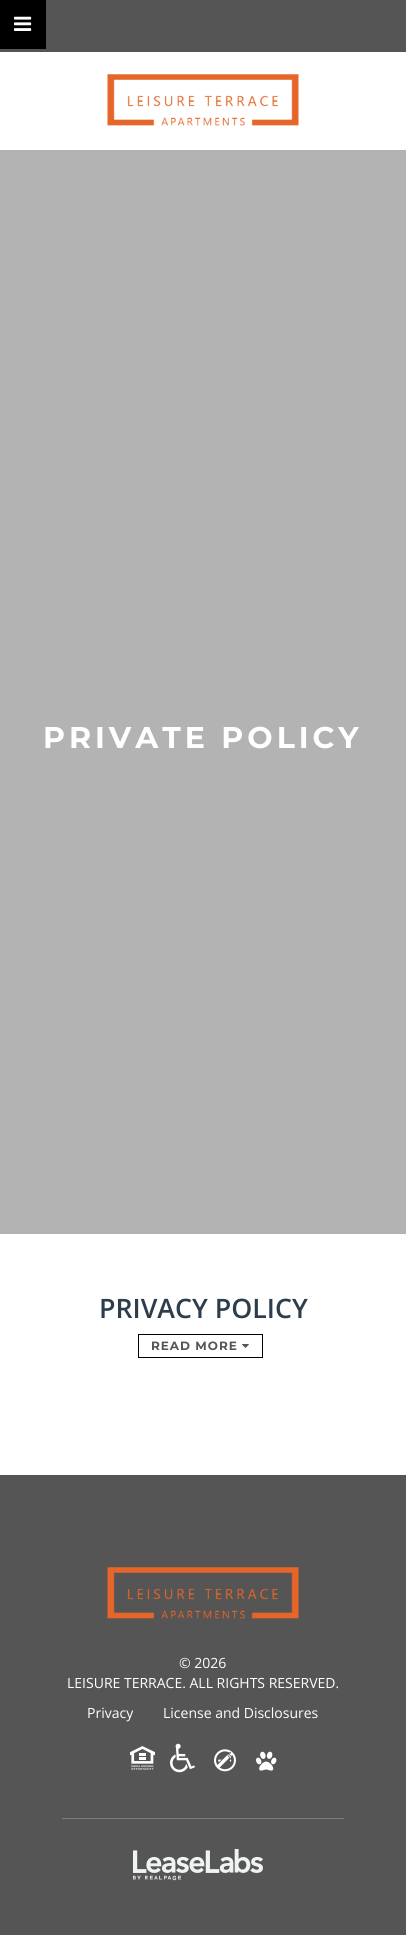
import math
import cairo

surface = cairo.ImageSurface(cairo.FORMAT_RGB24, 406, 1935)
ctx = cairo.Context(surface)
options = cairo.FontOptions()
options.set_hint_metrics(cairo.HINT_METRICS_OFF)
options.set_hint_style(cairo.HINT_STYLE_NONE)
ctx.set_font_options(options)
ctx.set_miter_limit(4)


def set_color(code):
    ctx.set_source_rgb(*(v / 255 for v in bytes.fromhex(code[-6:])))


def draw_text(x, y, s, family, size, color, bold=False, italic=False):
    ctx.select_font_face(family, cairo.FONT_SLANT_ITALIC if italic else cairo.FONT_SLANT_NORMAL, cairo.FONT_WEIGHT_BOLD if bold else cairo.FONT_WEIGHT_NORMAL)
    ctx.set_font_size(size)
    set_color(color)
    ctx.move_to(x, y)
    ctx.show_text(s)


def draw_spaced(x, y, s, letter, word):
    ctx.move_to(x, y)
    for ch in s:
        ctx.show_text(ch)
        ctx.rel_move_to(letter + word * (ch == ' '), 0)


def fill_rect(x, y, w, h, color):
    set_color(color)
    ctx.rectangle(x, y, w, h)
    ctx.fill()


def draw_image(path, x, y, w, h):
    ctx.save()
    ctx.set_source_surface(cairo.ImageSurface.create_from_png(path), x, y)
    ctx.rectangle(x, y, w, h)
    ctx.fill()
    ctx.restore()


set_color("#ffffff")
ctx.paint()
fill_rect(0, 0, 406, 52, "#555555")
fill_rect(0, 0, 46, 49, "#000000")
draw_image("assets/img1.png", 14, 16, 18, 15)
draw_image("assets/img2.png", 107, 74, 192, 52)
fill_rect(0, 150, 406, 1084, "#b3b3b3")
ctx.select_font_face("Montserrat", cairo.FONT_SLANT_NORMAL, cairo.FONT_WEIGHT_BOLD)
ctx.set_font_size(30)
set_color("#ffffff")
draw_spaced(43, 748, "PRIVATE POLICY", 4, 0)
draw_text(99, 1318, "PRIVACY POLICY", "Open Sans SemiBold", 26.75, "#2d3d4c")
ctx.rectangle(138.5, 1334.5, 124, 23)
set_color("#000000")
ctx.set_line_width(1)
ctx.stroke()
ctx.select_font_face("Montserrat", cairo.FONT_SLANT_NORMAL, cairo.FONT_WEIGHT_BOLD)
ctx.set_font_size(12)
set_color("#555555")
draw_spaced(151, 1350, "READ MORE", 1, 0)
draw_image("assets/img3.png", 242, 1344, 7, 4)
fill_rect(0, 1475, 406, 460, "#555555")
draw_image("assets/img4.png", 107, 1567, 192, 52)
draw_text(179, 1668, "© 2026", "Open Sans", 14, "#ffffff")
draw_text(67, 1688, "LEISURE TERRACE. ALL RIGHTS RESERVED.", "Open Sans", 14, "#ffffff")
draw_text(87, 1718, "Privacy", "Open Sans", 14, "#ffffff")
draw_text(163, 1718, "License and Disclosures", "Open Sans", 14, "#ffffff")
draw_image("assets/img5.png", 130, 1746, 25, 24)
draw_image("assets/img6.png", 170, 1743, 25, 30)
draw_image("assets/img7.png", 214, 1749, 22, 23)
draw_image("assets/img8.png", 256, 1751, 21, 20)
fill_rect(62, 1818, 282, 1, "#7d7d7d")
draw_image("assets/img9.png", 133, 1849, 130, 32)
surface.write_to_png("output.png")
